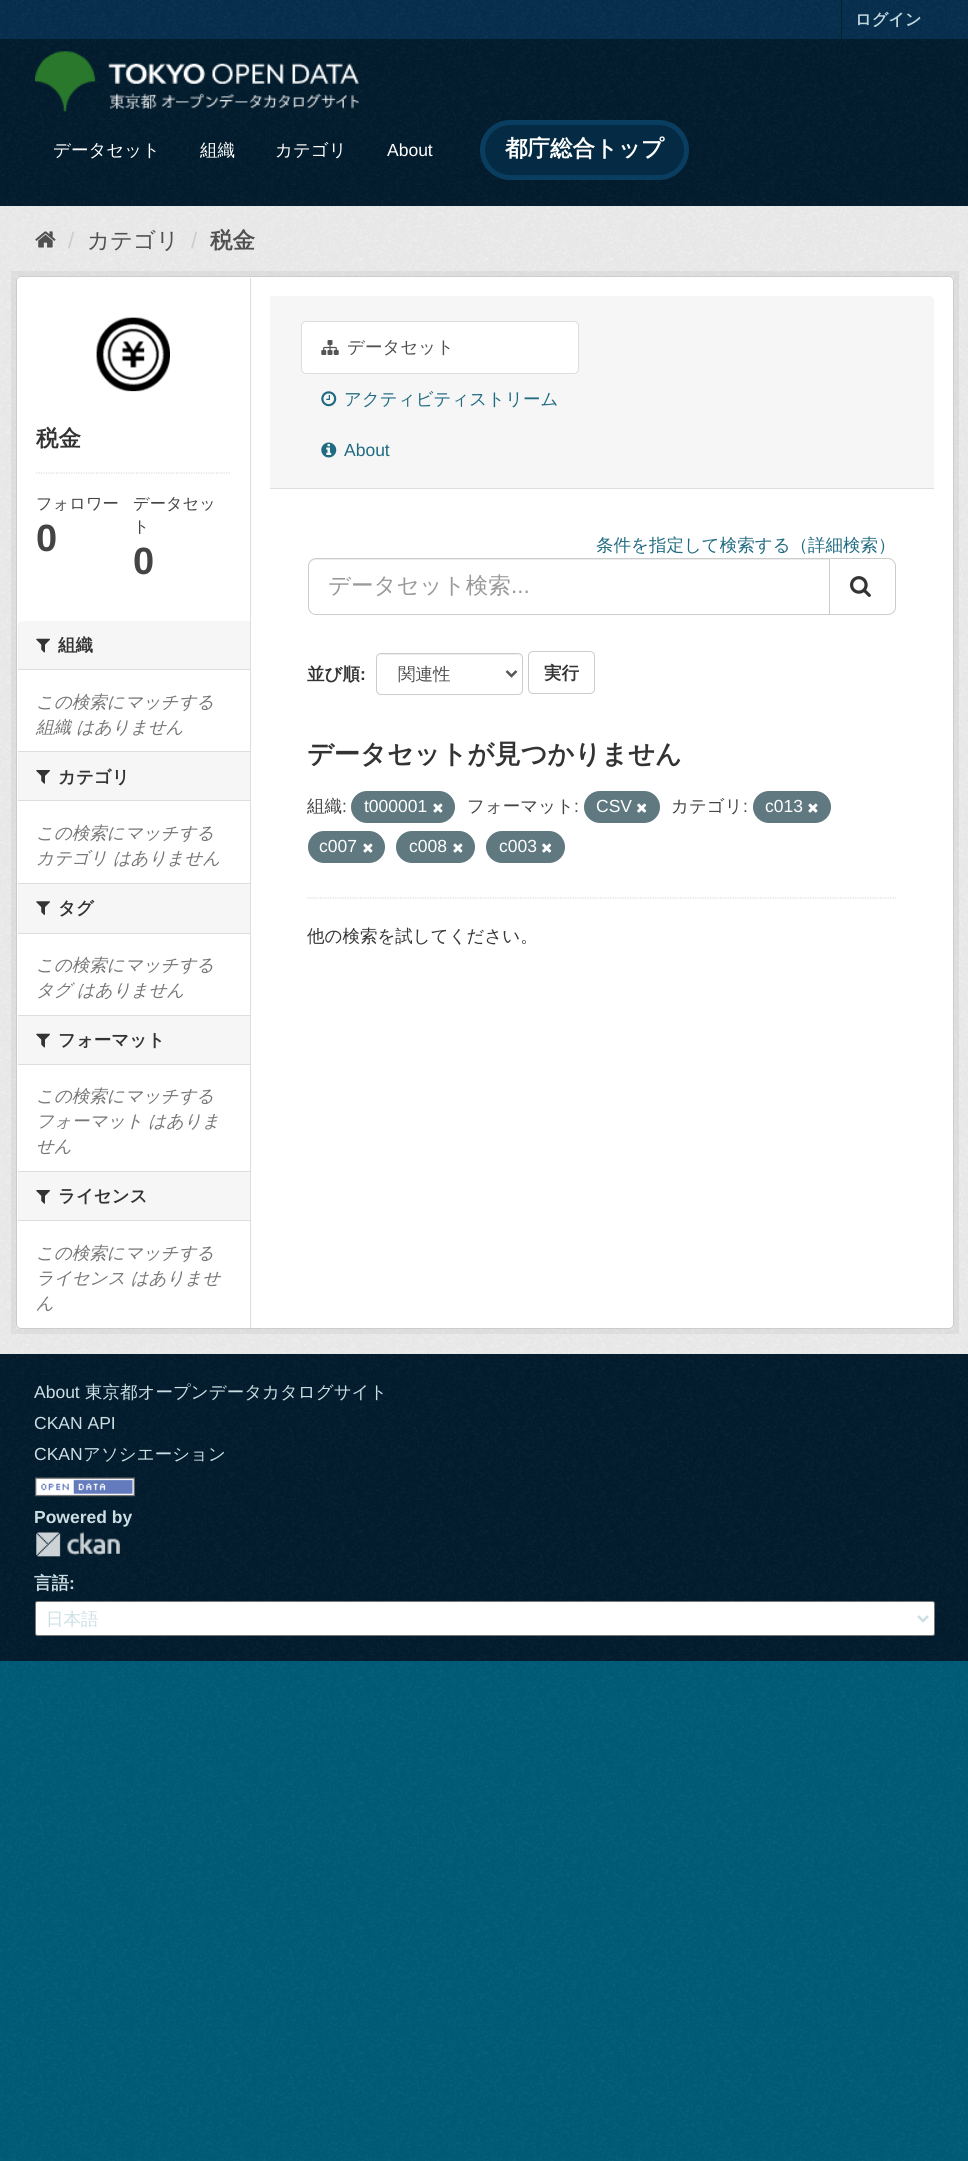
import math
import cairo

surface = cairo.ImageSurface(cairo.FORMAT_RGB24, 968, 2161)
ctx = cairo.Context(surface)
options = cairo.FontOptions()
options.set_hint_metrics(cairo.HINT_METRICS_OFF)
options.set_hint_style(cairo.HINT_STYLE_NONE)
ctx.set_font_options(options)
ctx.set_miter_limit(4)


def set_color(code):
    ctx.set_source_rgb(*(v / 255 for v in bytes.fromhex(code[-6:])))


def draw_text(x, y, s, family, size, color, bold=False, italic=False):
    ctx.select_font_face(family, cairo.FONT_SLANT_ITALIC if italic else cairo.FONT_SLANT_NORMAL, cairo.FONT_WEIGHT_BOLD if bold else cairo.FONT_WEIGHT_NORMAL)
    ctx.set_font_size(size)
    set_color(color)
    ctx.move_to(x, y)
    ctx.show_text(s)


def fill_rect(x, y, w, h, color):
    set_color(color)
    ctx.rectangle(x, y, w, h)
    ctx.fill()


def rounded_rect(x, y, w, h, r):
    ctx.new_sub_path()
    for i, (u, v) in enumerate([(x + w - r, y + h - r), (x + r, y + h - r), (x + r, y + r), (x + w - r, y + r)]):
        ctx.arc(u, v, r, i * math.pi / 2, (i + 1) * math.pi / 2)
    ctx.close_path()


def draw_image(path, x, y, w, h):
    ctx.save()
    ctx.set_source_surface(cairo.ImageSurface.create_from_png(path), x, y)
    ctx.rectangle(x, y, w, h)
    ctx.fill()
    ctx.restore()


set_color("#005d7a")
ctx.paint()
draw_image("assets/img1.png", 0, 1661, 968, 500)
fill_rect(0, 0, 968, 39, "#06304e")
draw_image("assets/img2.png", 0, 0, 968, 38)
fill_rect(841, 0, 1, 39, "#00232e")
draw_text(855, 25, "ログイン", "WenQuanYi Zen Hei", 16.25, "#bfd7de", bold=True)
fill_rect(0, 39, 968, 167, "#021d2e")
draw_image("assets/img3.png", 0, 39, 968, 167)
draw_image("assets/img4.png", 35, 51, 324, 61)
draw_text(53, 156, "データセット", "WenQuanYi Zen Hei Medium", 17.5, "#ffffff")
draw_text(200, 156, "組織", "WenQuanYi Zen Hei Medium", 17.5, "#ffffff")
draw_text(275, 156, "カテゴリ", "WenQuanYi Zen Hei Medium", 17.5, "#ffffff")
draw_text(387, 156, "About", "Liberation Sans", 17.5, "#ffffff")
set_color("#042b43")
rounded_rect(482.5, 122.5, 204, 55, 27.5)
ctx.fill_preserve()
set_color("#093e60")
ctx.set_line_width(5)
ctx.stroke()
draw_text(505, 156, "都庁総合トップ", "WenQuanYi Zen Hei", 22.5, "#ffffff", bold=True)
fill_rect(0, 206, 968, 1148, "#eeeeee")
draw_image("assets/img5.png", 0, 206, 968, 1148)
draw_image("assets/img6.png", 35, 231, 21, 17)
draw_text(68, 248, "/", "Liberation Sans", 22.5, "#cccccc")
draw_text(87, 248, "カテゴリ", "WenQuanYi Zen Hei Medium", 22.5, "#505050")
draw_text(191, 248, "/", "Liberation Sans", 22.5, "#cccccc")
draw_text(210, 248, "税金", "WenQuanYi Zen Hei", 22.5, "#505050", bold=True)
ctx.rectangle(13.5, 273.5, 943, 1058)
ctx.set_source_rgba(0, 0, 0, 0.05)
ctx.stroke()
set_color("#ffffff")
rounded_rect(16.5, 276.5, 937, 1052, 4.5)
ctx.fill_preserve()
set_color("#cccccc")
ctx.set_line_width(1)
ctx.stroke()
draw_image("assets/img7.png", 96, 317, 74, 75)
draw_text(36, 446, "税金", "WenQuanYi Zen Hei", 22.5, "#333333", bold=True)
ctx.new_path()
ctx.move_to(36, 473)
ctx.line_to(231, 473)
set_color("#dddddd")
ctx.set_line_width(1.2)
ctx.set_dash([1.25, 1.25])
ctx.stroke()
draw_text(36, 509, "フォロワー", "WenQuanYi Zen Hei Medium", 16.25, "#444444")
draw_text(36, 551, "0", "Liberation Sans", 38, "#444444", bold=True)
draw_text(133, 509, "データセッ", "WenQuanYi Zen Hei Medium", 16.25, "#444444")
draw_text(133, 532, "ト", "WenQuanYi Zen Hei Medium", 16.25, "#444444")
draw_text(133, 574, "0", "Liberation Sans", 38, "#444444", bold=True)
set_color("#f6f6f6")
ctx.new_path()
ctx.move_to(22, 621)
ctx.line_to(250, 621)
ctx.line_to(250, 670)
ctx.line_to(18, 670)
ctx.line_to(18, 625)
ctx.curve_to(18, 623, 20, 621, 22, 621)
ctx.close_path()
ctx.fill()
fill_rect(18, 669, 232, 1, "#dddddd")
draw_image("assets/img8.png", 36, 638, 14, 15)
draw_text(58, 651, "組織", "WenQuanYi Zen Hei", 17.5, "#333333", bold=True)
draw_text(36, 708, "この検索にマッチする", "WenQuanYi Zen Hei Medium", 17.5, "#767676", italic=True)
draw_text(36, 733, "組織 はありません", "WenQuanYi Zen Hei Medium", 17.5, "#767676", italic=True)
fill_rect(18, 752, 232, 48, "#f6f6f6")
fill_rect(18, 751, 232, 1, "#dddddd")
fill_rect(18, 800, 232, 1, "#dddddd")
draw_image("assets/img9.png", 36, 770, 14, 14)
draw_text(58, 783, "カテゴリ", "WenQuanYi Zen Hei", 17.5, "#333333", bold=True)
draw_text(36, 839, "この検索にマッチする", "WenQuanYi Zen Hei Medium", 17.5, "#767676", italic=True)
draw_text(36, 864, "カテゴリ はありません", "WenQuanYi Zen Hei Medium", 17.5, "#767676", italic=True)
fill_rect(18, 884, 232, 49, "#f6f6f6")
fill_rect(18, 883, 232, 1, "#dddddd")
fill_rect(18, 933, 232, 1, "#dddddd")
draw_image("assets/img10.png", 36, 901, 14, 14)
draw_text(58, 914, "タグ", "WenQuanYi Zen Hei", 17.5, "#333333", bold=True)
draw_text(36, 971, "この検索にマッチする", "WenQuanYi Zen Hei Medium", 17.5, "#767676", italic=True)
draw_text(36, 996, "タグ はありません", "WenQuanYi Zen Hei Medium", 17.5, "#767676", italic=True)
fill_rect(18, 1016, 232, 48, "#f6f6f6")
fill_rect(18, 1015, 232, 1, "#dddddd")
fill_rect(18, 1064, 232, 1, "#dddddd")
draw_image("assets/img8.png", 36, 1033, 14, 15)
draw_text(58, 1046, "フォーマット", "WenQuanYi Zen Hei", 17.5, "#333333", bold=True)
draw_text(36, 1102, "この検索にマッチする", "WenQuanYi Zen Hei Medium", 17.5, "#767676", italic=True)
draw_text(36, 1127, "フォーマット はありま", "WenQuanYi Zen Hei Medium", 17.5, "#767676", italic=True)
draw_text(36, 1152, "せん", "WenQuanYi Zen Hei Medium", 17.5, "#767676", italic=True)
fill_rect(18, 1172, 232, 48, "#f6f6f6")
fill_rect(18, 1171, 232, 1, "#dddddd")
fill_rect(18, 1220, 232, 1, "#dddddd")
draw_image("assets/img9.png", 36, 1190, 14, 14)
draw_text(58, 1202, "ライセンス", "WenQuanYi Zen Hei", 17.5, "#333333", bold=True)
draw_text(36, 1259, "この検索にマッチする", "WenQuanYi Zen Hei Medium", 17.5, "#767676", italic=True)
draw_text(36, 1284, "ライセンス はありませ", "WenQuanYi Zen Hei Medium", 17.5, "#767676", italic=True)
draw_text(36, 1309, "ん", "WenQuanYi Zen Hei Medium", 17.5, "#767676", italic=True)
fill_rect(250, 278, 1, 1050, "#dddddd")
set_color("#f6f6f6")
ctx.new_path()
ctx.move_to(270, 296)
ctx.line_to(930, 296)
ctx.curve_to(932, 296, 934, 298, 934, 300)
ctx.line_to(934, 489)
ctx.line_to(270, 489)
ctx.close_path()
ctx.fill()
fill_rect(270, 488, 664, 1, "#dddddd")
set_color("#ffffff")
rounded_rect(301.5, 321.5, 277, 52, 4.5)
ctx.fill_preserve()
set_color("#dddddd")
ctx.set_line_width(1)
ctx.set_dash([])
ctx.stroke()
draw_image("assets/img11.png", 321, 340, 18, 15)
draw_text(347, 353, "データセット", "WenQuanYi Zen Hei Medium", 17.5, "#505050")
draw_image("assets/img12.png", 321, 391, 16, 16)
draw_text(344, 405, "アクティビティストリーム", "WenQuanYi Zen Hei Medium", 17.5, "#206b82")
draw_image("assets/img13.png", 321, 442, 16, 16)
draw_text(344, 456, "About", "Liberation Sans", 17.5, "#206b82")
ctx.new_path()
ctx.move_to(307.5, 898)
ctx.line_to(896, 898)
set_color("#dddddd")
ctx.set_line_width(1.2)
ctx.set_dash([1.25, 1.25])
ctx.stroke()
draw_text(596, 551, "条件を指定して検索する（詳細検索）", "WenQuanYi Zen Hei Medium", 17.5, "#206b82")
set_color("#ececec")
ctx.new_path()
ctx.move_to(315, 560)
ctx.line_to(829, 560)
ctx.line_to(829, 559)
ctx.line_to(315, 559)
ctx.curve_to(311, 559, 309, 562, 309, 566)
ctx.curve_to(309, 563, 312, 560, 315, 560)
ctx.close_path()
ctx.fill()
ctx.new_path()
ctx.move_to(316, 558.5)
ctx.line_to(829.5, 558.5)
ctx.line_to(829.5, 614.5)
ctx.line_to(316, 614.5)
ctx.curve_to(312, 614.5, 308.5, 611, 308.5, 607)
ctx.line_to(308.5, 566)
ctx.curve_to(308.5, 562, 312, 558.5, 316, 558.5)
ctx.close_path()
set_color("#cccccc")
ctx.set_line_width(1)
ctx.set_dash([])
ctx.stroke()
draw_text(328, 593, "データセット検索", "WenQuanYi Zen Hei Medium", 22.5, "#999999")
draw_text(511, 593, "...", "Liberation Sans", 22.5, "#999999")
set_color("#ffffff")
ctx.new_path()
ctx.move_to(829.5, 558.5)
ctx.line_to(888, 558.5)
ctx.curve_to(892, 558.5, 895.5, 562, 895.5, 566)
ctx.line_to(895.5, 607)
ctx.curve_to(895.5, 611, 892, 614.5, 888, 614.5)
ctx.line_to(829.5, 614.5)
ctx.close_path()
ctx.fill_preserve()
set_color("#cccccc")
ctx.stroke()
draw_image("assets/img14.png", 850, 576, 21, 21)
draw_text(307, 680, "並び順", "WenQuanYi Zen Hei", 17.5, "#333333", bold=True)
draw_text(360, 680, ":", "Liberation Sans", 17.5, "#333333", bold=True)
set_color("#ececec")
ctx.new_path()
ctx.move_to(381, 655)
ctx.line_to(518, 655)
ctx.curve_to(520, 655, 521, 657, 521, 659)
ctx.line_to(521, 658)
ctx.curve_to(521, 656, 519, 654, 517, 654)
ctx.line_to(382, 654)
ctx.curve_to(380, 654, 378, 656, 378, 658)
ctx.line_to(378, 659)
ctx.curve_to(378, 657, 379, 655, 381, 655)
ctx.close_path()
ctx.fill()
rounded_rect(376.5, 653.5, 146, 41, 4.5)
set_color("#cccccc")
ctx.stroke()
ctx.new_path()
ctx.move_to(506.5, 671)
ctx.line_to(511.5, 676)
ctx.line_to(516.5, 671)
set_color("#555555")
ctx.set_line_width(2.5)
ctx.stroke()
draw_text(398, 680, "関連性", "WenQuanYi Zen Hei Medium", 17.5, "#505050")
rounded_rect(528.5, 651.5, 66, 42, 4.5)
set_color("#cccccc")
ctx.set_line_width(1)
ctx.stroke()
draw_text(544, 679, "実行", "WenQuanYi Zen Hei", 17.5, "#333333", bold=True)
draw_text(307, 763, "データセットが見つかりません", "WenQuanYi Zen Hei", 26.25, "#333333", bold=True)
draw_text(307, 812, "組織", "WenQuanYi Zen Hei Medium", 17.5, "#444444")
draw_text(342, 812, ":", "Liberation Sans", 17.5, "#444444")
set_color("#607880")
rounded_rect(351, 791, 104, 32, 16)
ctx.fill()
draw_text(364, 812, "t000001", "Liberation Sans", 17.5, "#ffffff")
draw_image("assets/img15.png", 433, 803, 10, 10)
draw_text(467, 812, "フォーマット", "WenQuanYi Zen Hei Medium", 17.5, "#444444")
draw_text(574, 812, ":", "Liberation Sans", 17.5, "#444444")
set_color("#607880")
rounded_rect(584, 791, 76, 32, 16)
ctx.fill()
draw_text(596, 812, "CSV", "Liberation Sans", 17.5, "#ffffff")
draw_image("assets/img16.png", 637, 803, 10, 10)
draw_text(671, 812, "カテゴリ", "WenQuanYi Zen Hei Medium", 17.5, "#444444")
draw_text(743, 812, ":", "Liberation Sans", 17.5, "#444444")
set_color("#607880")
rounded_rect(753, 791, 78, 32, 16)
ctx.fill()
draw_text(765, 812, "c013", "Liberation Sans", 17.5, "#ffffff")
draw_image("assets/img15.png", 808, 803, 10, 10)
set_color("#607880")
rounded_rect(308, 831, 77, 32, 16)
ctx.fill()
draw_text(319, 852, "c007", "Liberation Sans", 17.5, "#ffffff")
draw_image("assets/img15.png", 363, 843, 10, 10)
set_color("#607880")
rounded_rect(396, 831, 79, 32, 16)
ctx.fill()
draw_text(409, 852, "c008", "Liberation Sans", 17.5, "#ffffff")
draw_image("assets/img15.png", 453, 843, 10, 10)
set_color("#607880")
rounded_rect(486, 831, 79, 32, 16)
ctx.fill()
draw_text(499, 852, "c003", "Liberation Sans", 17.5, "#ffffff")
draw_image("assets/img16.png", 542, 843, 10, 10)
draw_text(307, 942, "他の検索を試してください。", "WenQuanYi Zen Hei Medium", 17.5, "#333333")
fill_rect(0, 1354, 968, 307, "#021d2e")
draw_image("assets/img17.png", 0, 1354, 968, 307)
draw_text(34, 1398, "About", "Liberation Sans", 17.5, "#ccdee3")
draw_text(85, 1398, "東京都オープンデータカタログサイト", "WenQuanYi Zen Hei Medium", 17.5, "#ccdee3")
draw_text(34, 1429, "CKAN API", "Liberation Sans", 17.5, "#ccdee3")
draw_text(34, 1460, "CKAN", "Liberation Sans", 17.5, "#ccdee3")
draw_text(83, 1460, "アソシエーション", "WenQuanYi Zen Hei Medium", 17.5, "#ccdee3")
draw_image("assets/img18.png", 35, 1477, 100, 20)
draw_text(34, 1523, "Powered by", "Liberation Sans", 17.5, "#ccdee3", bold=True)
draw_image("assets/img19.png", 36, 1532, 84, 25)
draw_text(34, 1589, "言語", "WenQuanYi Zen Hei", 17.5, "#ccdee3", bold=True)
draw_text(69, 1589, ":", "Liberation Sans", 17.5, "#ccdee3", bold=True)
set_color("#ffffff")
rounded_rect(35.5, 1601.5, 899, 34, 2)
ctx.fill_preserve()
set_color("#767676")
ctx.stroke()
ctx.new_path()
ctx.move_to(918, 1616)
ctx.line_to(923, 1621)
ctx.line_to(928, 1616)
set_color("#ccdee3")
ctx.set_line_width(2.5)
ctx.stroke()
draw_text(46, 1625, "日本語", "WenQuanYi Zen Hei Medium", 17.5, "#ccdee3")
surface.write_to_png("output.png")
